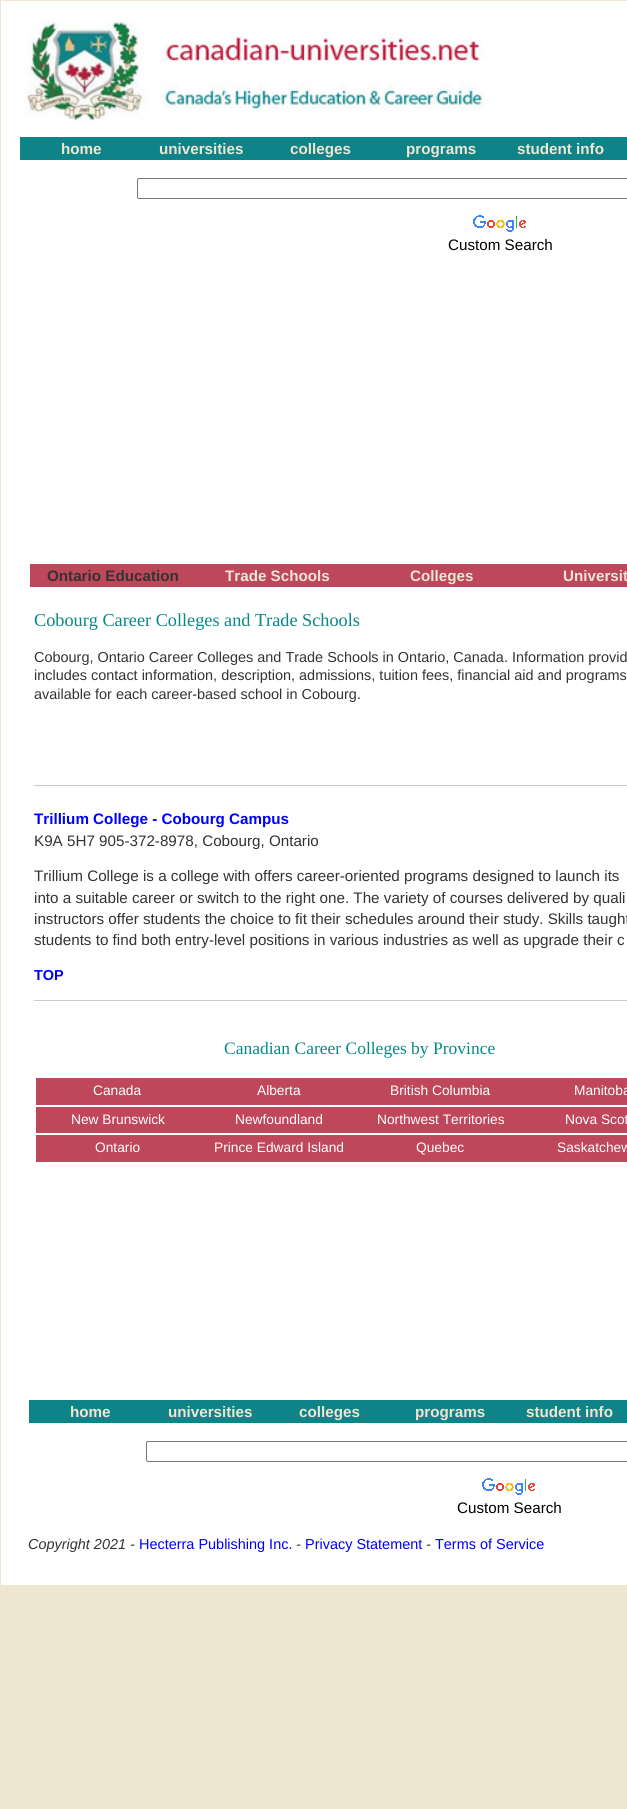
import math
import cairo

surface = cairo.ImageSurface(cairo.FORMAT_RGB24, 627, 1809)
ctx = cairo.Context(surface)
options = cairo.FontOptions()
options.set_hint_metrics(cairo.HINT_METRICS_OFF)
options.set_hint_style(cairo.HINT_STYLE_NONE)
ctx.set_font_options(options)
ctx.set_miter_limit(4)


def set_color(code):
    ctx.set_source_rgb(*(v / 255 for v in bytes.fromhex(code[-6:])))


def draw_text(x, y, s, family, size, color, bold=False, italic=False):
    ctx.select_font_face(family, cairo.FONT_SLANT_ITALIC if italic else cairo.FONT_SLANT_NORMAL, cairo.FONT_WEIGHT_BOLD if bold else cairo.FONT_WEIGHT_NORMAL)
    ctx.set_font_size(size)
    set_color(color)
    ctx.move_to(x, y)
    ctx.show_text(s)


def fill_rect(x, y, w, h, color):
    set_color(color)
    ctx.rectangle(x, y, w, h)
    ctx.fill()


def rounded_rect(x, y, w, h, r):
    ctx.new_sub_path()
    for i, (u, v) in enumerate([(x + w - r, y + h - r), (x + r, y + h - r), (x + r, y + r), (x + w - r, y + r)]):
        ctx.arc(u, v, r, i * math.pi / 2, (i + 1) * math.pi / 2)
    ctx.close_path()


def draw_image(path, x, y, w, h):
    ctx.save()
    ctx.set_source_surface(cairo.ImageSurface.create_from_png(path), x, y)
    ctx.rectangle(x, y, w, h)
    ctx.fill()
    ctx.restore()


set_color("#efe6d1")
ctx.paint()
fill_rect(1, 1, 626, 1584, "#ffffff")
draw_image("assets/img1.png", 24, 21, 465, 100)
fill_rect(20, 137, 607, 23, "#0e8488")
draw_text(61, 154, "home", "Liberation Sans", 15.2, "#efe6d1", bold=True)
draw_text(159, 154, "universities", "Liberation Sans", 15.2, "#efe6d1", bold=True)
draw_text(290, 154, "colleges", "Liberation Sans", 15.2, "#efe6d1", bold=True)
draw_text(406, 154, "programs", "Liberation Sans", 15.2, "#efe6d1", bold=True)
draw_text(517, 154, "student info", "Liberation Sans", 15.2, "#efe6d1", bold=True)
rounded_rect(137.5, 178.5, 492, 20, 1.5)
set_color("#767676")
ctx.set_line_width(1)
ctx.stroke()
draw_image("assets/img2.png", 473, 215, 53, 17)
draw_text(448, 250, "Custom Search", "Liberation Sans", 15.2, "#000000")
fill_rect(30, 564, 597, 23, "#bf475a")
draw_text(47, 581, "Ontario Education", "Liberation Sans", 15.2, "#333333", bold=True)
draw_text(225, 581, "Trade Schools", "Liberation Sans", 15.2, "#efe6d1", bold=True)
draw_text(410, 581, "Colleges", "Liberation Sans", 15.2, "#efe6d1", bold=True)
draw_text(563, 581, "Universit", "Liberation Sans", 15.2, "#efe6d1", bold=True)
draw_text(34, 626, "Cobourg Career Colleges and Trade Schools", "Liberation Serif", 18.25, "#078987")
draw_text(34, 662, "Cobourg, Ontario Career Colleges and Trade Schools in Ontario, Canada. Information provid", "Liberation Sans", 14.45, "#333333")
draw_text(34, 680, "includes contact information, description, admissions, tuition fees, financial aid and programs", "Liberation Sans", 14.45, "#333333")
draw_text(34, 699, "available for each career-based school in Cobourg.", "Liberation Sans", 14.45, "#333333")
fill_rect(34, 785, 593, 1, "#cccccc")
draw_text(34, 824, "Trillium College - Cobourg Campus", "Liberation Sans", 15.2, "#0000ff", bold=True)
draw_text(34, 846, "K9A 5H7 905-372-8978, Cobourg, Ontario", "Liberation Sans", 15.2, "#333333")
draw_text(34, 881, "Trillium College is a college with offers career-oriented programs designed to launch its", "Liberation Sans", 15.2, "#333333")
draw_text(34, 903, "into a suitable career or switch to the right one. The variety of courses delivered by quali", "Liberation Sans", 15.2, "#333333")
draw_text(34, 924, "instructors offer students the choice to fit their schedules around their study. Skills taught", "Liberation Sans", 15.2, "#333333")
draw_text(34, 945, "students to find both entry-level positions in various industries as well as upgrade their c", "Liberation Sans", 15.2, "#333333")
draw_text(34, 980, "TOP", "Liberation Sans", 14.45, "#0000ff", bold=True)
fill_rect(34, 1000, 593, 1, "#cccccc")
draw_text(224, 1054, "Canadian Career Colleges by Province", "Liberation Serif", 17.5, "#078987")
fill_rect(36, 1078, 591, 27, "#bf475a")
draw_text(93, 1095, "Canada", "Liberation Sans", 13.75, "#ffffff")
draw_text(257, 1095, "Alberta", "Liberation Sans", 13.75, "#ffffff")
draw_text(390, 1095, "British Columbia", "Liberation Sans", 13.75, "#ffffff")
draw_text(574, 1095, "Manitoba", "Liberation Sans", 13.75, "#ffffff")
fill_rect(36, 1107, 591, 26, "#bf475a")
draw_text(71, 1124, "New Brunswick", "Liberation Sans", 13.75, "#ffffff")
draw_text(235, 1124, "Newfoundland", "Liberation Sans", 13.75, "#ffffff")
draw_text(377, 1124, "Northwest Territories", "Liberation Sans", 13.75, "#ffffff")
draw_text(565, 1124, "Nova Scot", "Liberation Sans", 13.75, "#ffffff")
fill_rect(36, 1135, 591, 27, "#bf475a")
draw_text(95, 1152, "Ontario", "Liberation Sans", 13.75, "#ffffff")
draw_text(214, 1152, "Prince Edward Island", "Liberation Sans", 13.75, "#ffffff")
draw_text(416, 1152, "Quebec", "Liberation Sans", 13.75, "#ffffff")
draw_text(557, 1152, "Saskatchew", "Liberation Sans", 13.75, "#ffffff")
fill_rect(29, 1400, 598, 23, "#0e8488")
draw_text(70, 1417, "home", "Liberation Sans", 15.2, "#efe6d1", bold=True)
draw_text(168, 1417, "universities", "Liberation Sans", 15.2, "#efe6d1", bold=True)
draw_text(299, 1417, "colleges", "Liberation Sans", 15.2, "#efe6d1", bold=True)
draw_text(415, 1417, "programs", "Liberation Sans", 15.2, "#efe6d1", bold=True)
draw_text(526, 1417, "student info", "Liberation Sans", 15.2, "#efe6d1", bold=True)
rounded_rect(146.5, 1441.5, 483, 20, 1.5)
set_color("#767676")
ctx.stroke()
draw_image("assets/img2.png", 482, 1478, 53, 17)
draw_text(457, 1513, "Custom Search", "Liberation Sans", 15.2, "#000000")
draw_text(28, 1549, "Copyright 2021 -", "Liberation Sans", 14.45, "#333333", italic=True)
draw_text(139, 1549, "Hecterra Publishing Inc.", "Liberation Sans", 14.45, "#0000ff")
draw_text(296, 1549, "-", "Liberation Sans", 14.45, "#333333", italic=True)
draw_text(305, 1549, "Privacy Statement", "Liberation Sans", 14.45, "#0000ff")
draw_text(426, 1549, "-", "Liberation Sans", 14.45, "#333333", italic=True)
draw_text(435, 1549, "Terms of Service", "Liberation Sans", 14.45, "#0000ff")
surface.write_to_png("output.png")
